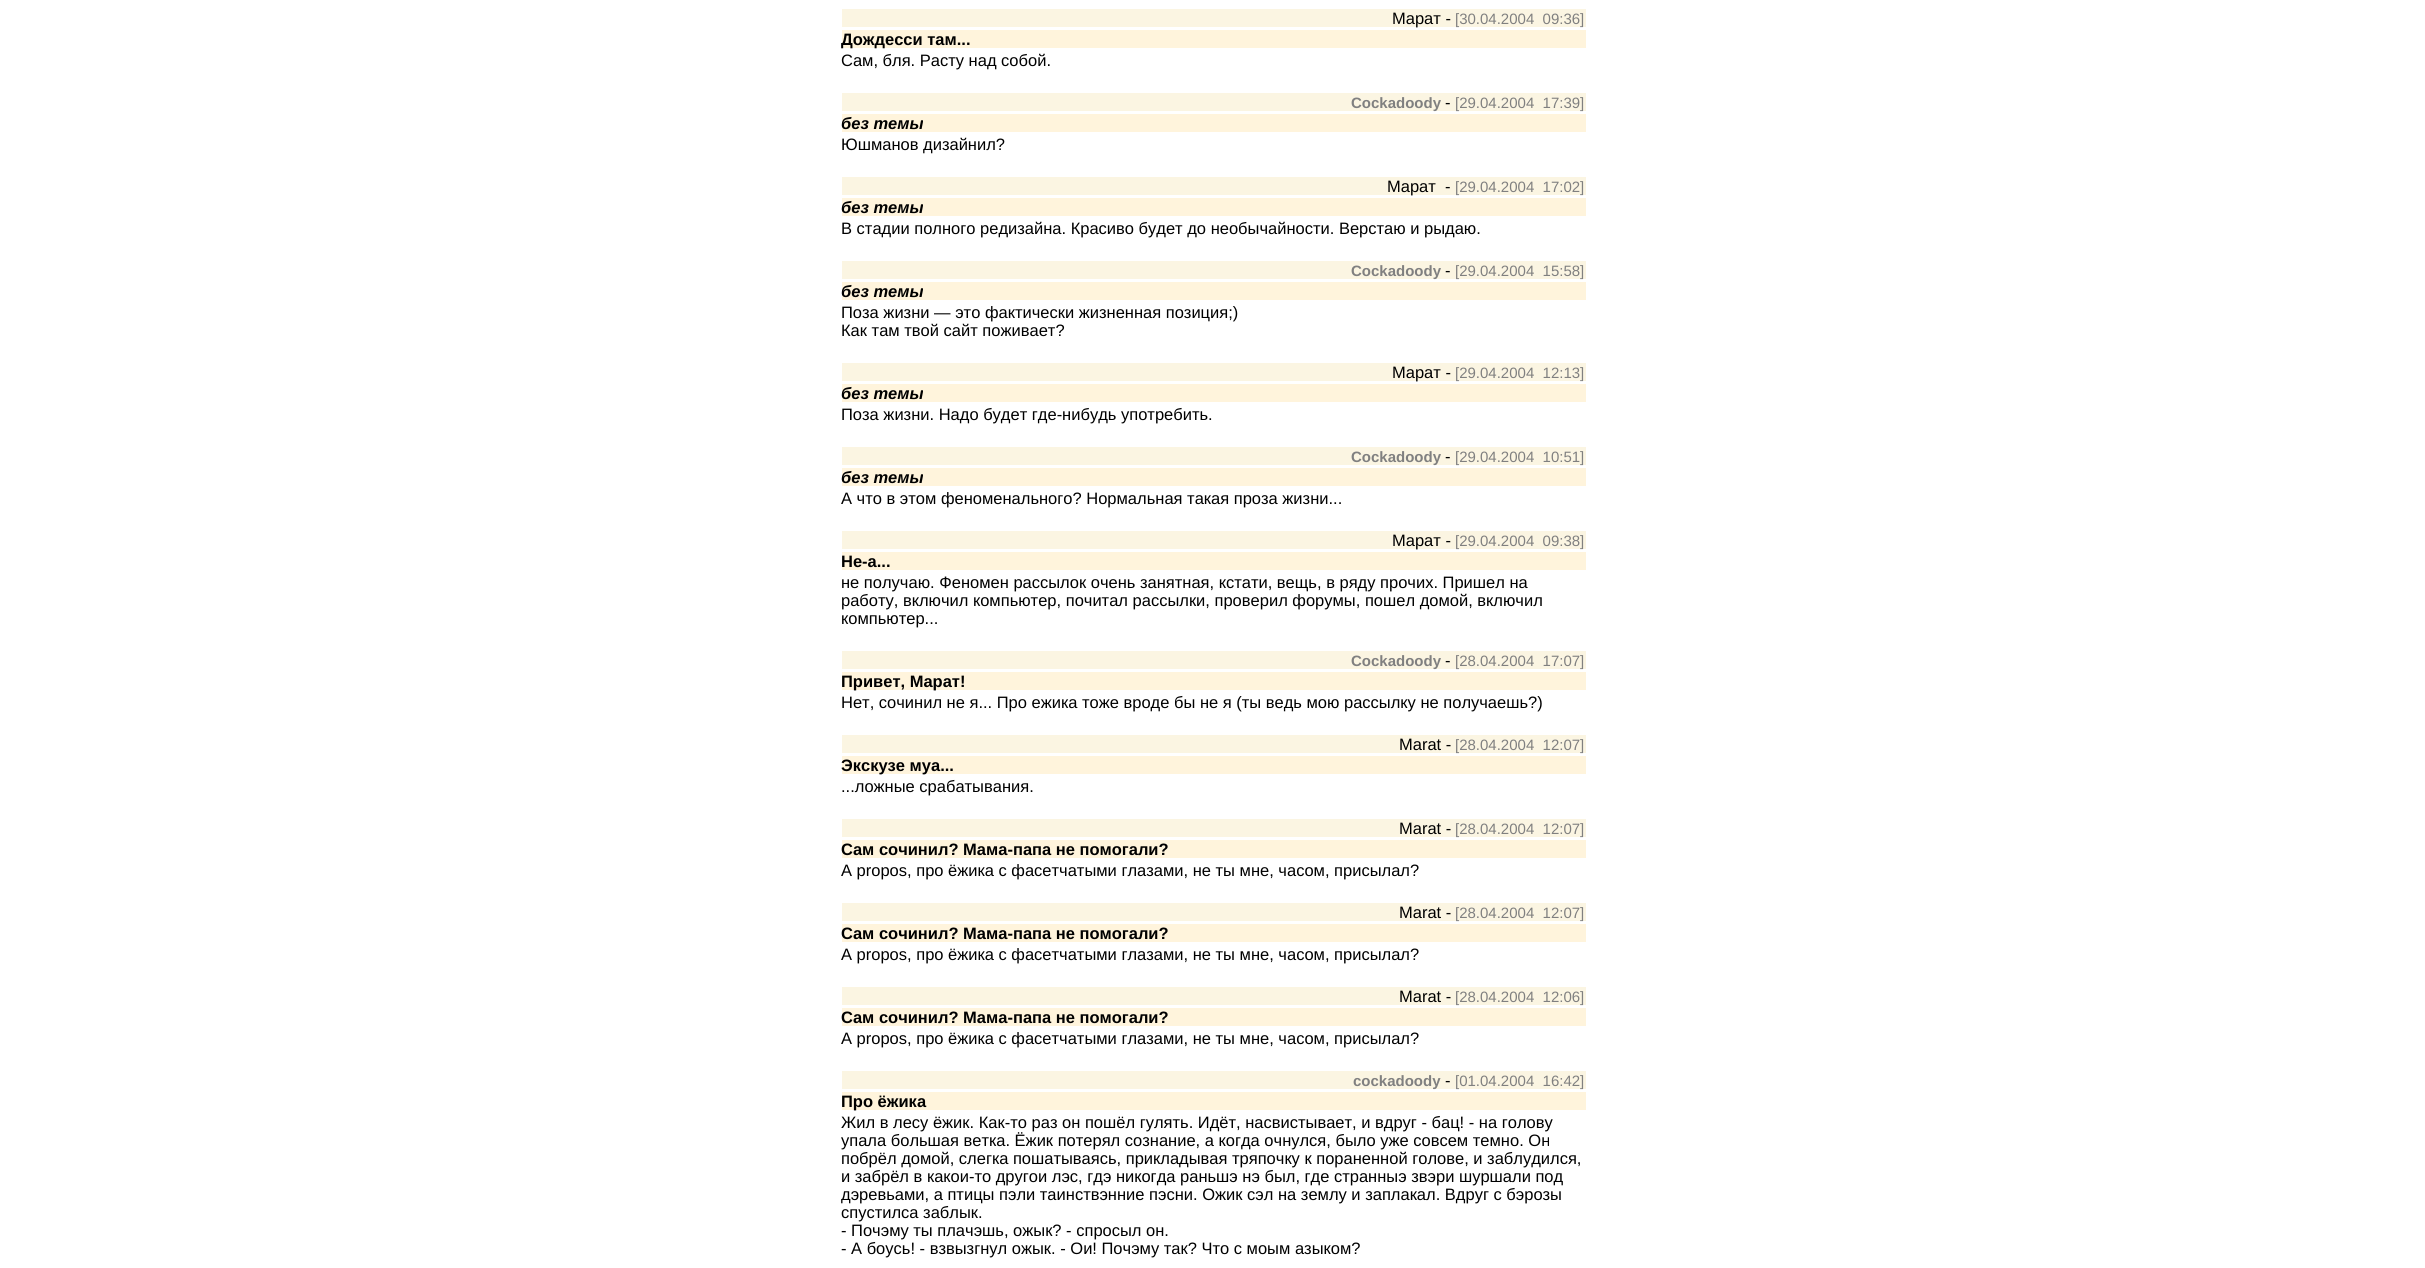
import math
import cairo

surface = cairo.ImageSurface(cairo.FORMAT_RGB24, 2425, 1268)
ctx = cairo.Context(surface)
options = cairo.FontOptions()
options.set_hint_metrics(cairo.HINT_METRICS_OFF)
options.set_hint_style(cairo.HINT_STYLE_NONE)
ctx.set_font_options(options)
ctx.set_miter_limit(4)


def set_color(code):
    ctx.set_source_rgb(*(v / 255 for v in bytes.fromhex(code[-6:])))


def draw_text(x, y, s, family, size, color, bold=False, italic=False):
    ctx.select_font_face(family, cairo.FONT_SLANT_ITALIC if italic else cairo.FONT_SLANT_NORMAL, cairo.FONT_WEIGHT_BOLD if bold else cairo.FONT_WEIGHT_NORMAL)
    ctx.set_font_size(size)
    set_color(color)
    ctx.move_to(x, y)
    ctx.show_text(s)


def fill_rect(x, y, w, h, color):
    set_color(color)
    ctx.rectangle(x, y, w, h)
    ctx.fill()


set_color("#ffffff")
ctx.paint()
fill_rect(842, 9, 744, 18, "#fbf5e2")
draw_text(1392, 24, "Марат -", "Liberation Sans", 16.5, "#000000")
draw_text(1455, 24, "[30.04.2004  09:36]", "Liberation Sans", 15, "#808080")
fill_rect(842, 30, 744, 18, "#fff4dc")
draw_text(841, 45, "Дождесси там...", "Liberation Sans", 16.5, "#000000", bold=True)
draw_text(841, 66, "Сам, бля. Расту над собой.", "Liberation Sans", 16.5, "#000000")
fill_rect(842, 93, 744, 18, "#fbf5e2")
draw_text(1351, 108, "Cockadoody", "Liberation Sans", 15, "#808080", bold=True)
draw_text(1445, 108, "-", "Liberation Sans", 16.5, "#000000")
draw_text(1455, 108, "[29.04.2004  17:39]", "Liberation Sans", 15, "#808080")
fill_rect(842, 114, 744, 18, "#fff4dc")
draw_text(841, 129, "без темы", "Liberation Sans", 16.5, "#000000", bold=True, italic=True)
draw_text(841, 150, "Юшманов дизайнил?", "Liberation Sans", 16.5, "#000000")
fill_rect(842, 177, 744, 18, "#fbf5e2")
draw_text(1387, 192, "Марат  -", "Liberation Sans", 16.5, "#000000")
draw_text(1455, 192, "[29.04.2004  17:02]", "Liberation Sans", 15, "#808080")
fill_rect(842, 198, 744, 18, "#fff4dc")
draw_text(841, 213, "без темы", "Liberation Sans", 16.5, "#000000", bold=True, italic=True)
draw_text(841, 234, "В стадии полного редизайна. Красиво будет до необычайности. Верстаю и рыдаю.", "Liberation Sans", 16.5, "#000000")
fill_rect(842, 261, 744, 18, "#fbf5e2")
draw_text(1351, 276, "Cockadoody", "Liberation Sans", 15, "#808080", bold=True)
draw_text(1445, 276, "-", "Liberation Sans", 16.5, "#000000")
draw_text(1455, 276, "[29.04.2004  15:58]", "Liberation Sans", 15, "#808080")
fill_rect(842, 282, 744, 18, "#fff4dc")
draw_text(841, 297, "без темы", "Liberation Sans", 16.5, "#000000", bold=True, italic=True)
draw_text(841, 318, "Поза жизни — это фактически жизненная позиция;)", "Liberation Sans", 16.5, "#000000")
draw_text(841, 336, "Как там твой сайт поживает?", "Liberation Sans", 16.5, "#000000")
fill_rect(842, 363, 744, 18, "#fbf5e2")
draw_text(1392, 378, "Марат -", "Liberation Sans", 16.5, "#000000")
draw_text(1455, 378, "[29.04.2004  12:13]", "Liberation Sans", 15, "#808080")
fill_rect(842, 384, 744, 18, "#fff4dc")
draw_text(841, 399, "без темы", "Liberation Sans", 16.5, "#000000", bold=True, italic=True)
draw_text(841, 420, "Поза жизни. Надо будет где-нибудь употребить.", "Liberation Sans", 16.5, "#000000")
fill_rect(842, 447, 744, 18, "#fbf5e2")
draw_text(1351, 462, "Cockadoody", "Liberation Sans", 15, "#808080", bold=True)
draw_text(1445, 462, "-", "Liberation Sans", 16.5, "#000000")
draw_text(1455, 462, "[29.04.2004  10:51]", "Liberation Sans", 15, "#808080")
fill_rect(842, 468, 744, 18, "#fff4dc")
draw_text(841, 483, "без темы", "Liberation Sans", 16.5, "#000000", bold=True, italic=True)
draw_text(841, 504, "А что в этом феноменального? Нормальная такая проза жизни...", "Liberation Sans", 16.5, "#000000")
fill_rect(842, 531, 744, 18, "#fbf5e2")
draw_text(1392, 546, "Марат -", "Liberation Sans", 16.5, "#000000")
draw_text(1455, 546, "[29.04.2004  09:38]", "Liberation Sans", 15, "#808080")
fill_rect(842, 552, 744, 18, "#fff4dc")
draw_text(841, 567, "Не-а...", "Liberation Sans", 16.5, "#000000", bold=True)
draw_text(841, 588, "не получаю. Феномен рассылок очень занятная, кстати, вещь, в ряду прочих. Пришел на", "Liberation Sans", 16.5, "#000000")
draw_text(841, 606, "работу, включил компьютер, почитал рассылки, проверил форумы, пошел домой, включил", "Liberation Sans", 16.5, "#000000")
draw_text(841, 624, "компьютер...", "Liberation Sans", 16.5, "#000000")
fill_rect(842, 651, 744, 18, "#fbf5e2")
draw_text(1351, 666, "Cockadoody", "Liberation Sans", 15, "#808080", bold=True)
draw_text(1445, 666, "-", "Liberation Sans", 16.5, "#000000")
draw_text(1455, 666, "[28.04.2004  17:07]", "Liberation Sans", 15, "#808080")
fill_rect(842, 672, 744, 18, "#fff4dc")
draw_text(841, 687, "Привет, Марат!", "Liberation Sans", 16.5, "#000000", bold=True)
draw_text(841, 708, "Нет, сочинил не я... Про ежика тоже вроде бы не я (ты ведь мою рассылку не получаешь?)", "Liberation Sans", 16.5, "#000000")
fill_rect(842, 735, 744, 18, "#fbf5e2")
draw_text(1399, 750, "Marat -", "Liberation Sans", 16.5, "#000000")
draw_text(1455, 750, "[28.04.2004  12:07]", "Liberation Sans", 15, "#808080")
fill_rect(842, 756, 744, 18, "#fff4dc")
draw_text(841, 771, "Экскузе муа...", "Liberation Sans", 16.5, "#000000", bold=True)
draw_text(841, 792, "...ложные срабатывания.", "Liberation Sans", 16.5, "#000000")
fill_rect(842, 819, 744, 18, "#fbf5e2")
draw_text(1399, 834, "Marat -", "Liberation Sans", 16.5, "#000000")
draw_text(1455, 834, "[28.04.2004  12:07]", "Liberation Sans", 15, "#808080")
fill_rect(842, 840, 744, 18, "#fff4dc")
draw_text(841, 855, "Сам сочинил? Мама-папа не помогали?", "Liberation Sans", 16.5, "#000000", bold=True)
draw_text(841, 876, "A propos, про ёжика с фасетчатыми глазами, не ты мне, часом, присылал?", "Liberation Sans", 16.5, "#000000")
fill_rect(842, 903, 744, 18, "#fbf5e2")
draw_text(1399, 918, "Marat -", "Liberation Sans", 16.5, "#000000")
draw_text(1455, 918, "[28.04.2004  12:07]", "Liberation Sans", 15, "#808080")
fill_rect(842, 924, 744, 18, "#fff4dc")
draw_text(841, 939, "Сам сочинил? Мама-папа не помогали?", "Liberation Sans", 16.5, "#000000", bold=True)
draw_text(841, 960, "A propos, про ёжика с фасетчатыми глазами, не ты мне, часом, присылал?", "Liberation Sans", 16.5, "#000000")
fill_rect(842, 987, 744, 18, "#fbf5e2")
draw_text(1399, 1002, "Marat -", "Liberation Sans", 16.5, "#000000")
draw_text(1455, 1002, "[28.04.2004  12:06]", "Liberation Sans", 15, "#808080")
fill_rect(842, 1008, 744, 18, "#fff4dc")
draw_text(841, 1023, "Сам сочинил? Мама-папа не помогали?", "Liberation Sans", 16.5, "#000000", bold=True)
draw_text(841, 1044, "A propos, про ёжика с фасетчатыми глазами, не ты мне, часом, присылал?", "Liberation Sans", 16.5, "#000000")
fill_rect(842, 1071, 744, 18, "#fbf5e2")
draw_text(1353, 1086, "cockadoody", "Liberation Sans", 15, "#808080", bold=True)
draw_text(1445, 1086, "-", "Liberation Sans", 16.5, "#000000")
draw_text(1455, 1086, "[01.04.2004  16:42]", "Liberation Sans", 15, "#808080")
fill_rect(842, 1092, 744, 18, "#fff4dc")
draw_text(841, 1107, "Про ёжика", "Liberation Sans", 16.5, "#000000", bold=True)
draw_text(841, 1128, "Жил в лесу ёжик. Как-то раз он пошёл гулять. Идёт, насвистывает, и вдруг - бац! - на голову", "Liberation Sans", 16.5, "#000000")
draw_text(841, 1146, "упала большая ветка. Ёжик потерял сознание, а когда очнулся, было уже совсем темно. Он", "Liberation Sans", 16.5, "#000000")
draw_text(841, 1164, "побрёл домой, слегка пошатываясь, прикладывая тряпочку к пораненной голове, и заблудился,", "Liberation Sans", 16.5, "#000000")
draw_text(841, 1182, "и забрёл в какои-то другои лэс, гдэ никогда раньшэ нэ был, где странныэ звэри шуршали под", "Liberation Sans", 16.5, "#000000")
draw_text(841, 1200, "дэревьами, а птицы пэли таинствэнние пэсни. Ожик сэл на землу и заплакал. Вдруг с бэрозы", "Liberation Sans", 16.5, "#000000")
draw_text(841, 1218, "спустилса заблык.", "Liberation Sans", 16.5, "#000000")
draw_text(841, 1236, "- Почэму ты плачэшь, ожык? - спросыл он.", "Liberation Sans", 16.5, "#000000")
draw_text(841, 1254, "- А боусь! - взвызгнул ожык. - Ои! Почэму так? Что с моым азыком?", "Liberation Sans", 16.5, "#000000")
surface.write_to_png("output.png")
